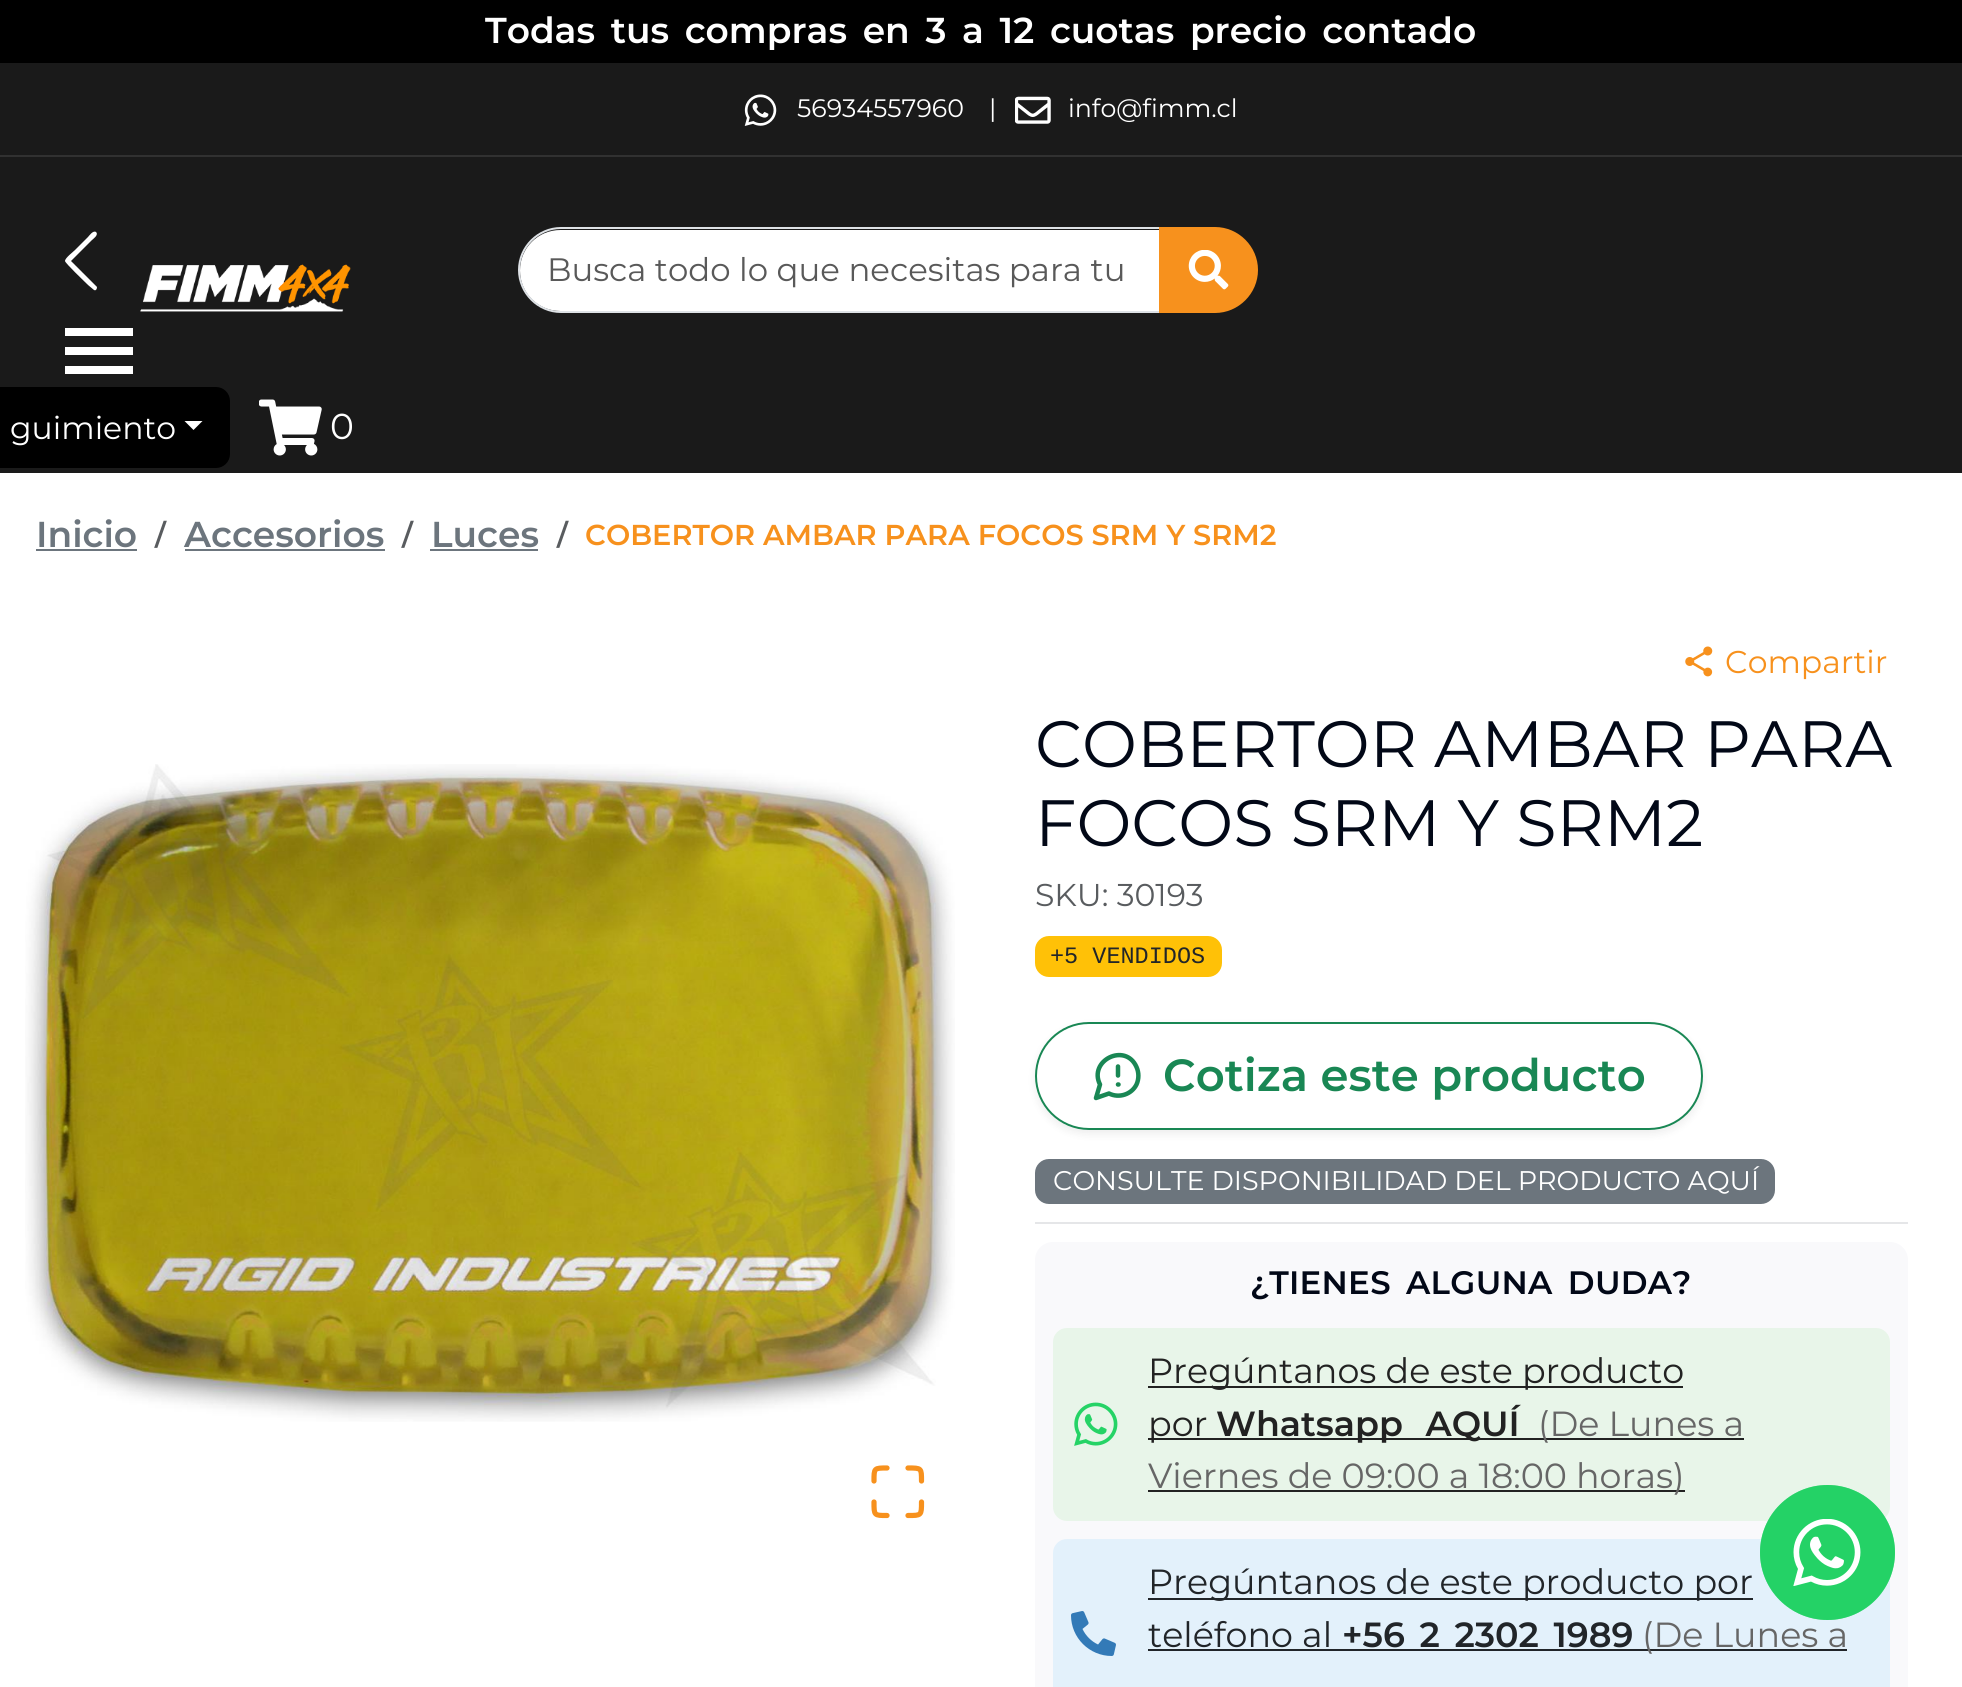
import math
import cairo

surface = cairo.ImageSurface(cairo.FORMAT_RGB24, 1962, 1687)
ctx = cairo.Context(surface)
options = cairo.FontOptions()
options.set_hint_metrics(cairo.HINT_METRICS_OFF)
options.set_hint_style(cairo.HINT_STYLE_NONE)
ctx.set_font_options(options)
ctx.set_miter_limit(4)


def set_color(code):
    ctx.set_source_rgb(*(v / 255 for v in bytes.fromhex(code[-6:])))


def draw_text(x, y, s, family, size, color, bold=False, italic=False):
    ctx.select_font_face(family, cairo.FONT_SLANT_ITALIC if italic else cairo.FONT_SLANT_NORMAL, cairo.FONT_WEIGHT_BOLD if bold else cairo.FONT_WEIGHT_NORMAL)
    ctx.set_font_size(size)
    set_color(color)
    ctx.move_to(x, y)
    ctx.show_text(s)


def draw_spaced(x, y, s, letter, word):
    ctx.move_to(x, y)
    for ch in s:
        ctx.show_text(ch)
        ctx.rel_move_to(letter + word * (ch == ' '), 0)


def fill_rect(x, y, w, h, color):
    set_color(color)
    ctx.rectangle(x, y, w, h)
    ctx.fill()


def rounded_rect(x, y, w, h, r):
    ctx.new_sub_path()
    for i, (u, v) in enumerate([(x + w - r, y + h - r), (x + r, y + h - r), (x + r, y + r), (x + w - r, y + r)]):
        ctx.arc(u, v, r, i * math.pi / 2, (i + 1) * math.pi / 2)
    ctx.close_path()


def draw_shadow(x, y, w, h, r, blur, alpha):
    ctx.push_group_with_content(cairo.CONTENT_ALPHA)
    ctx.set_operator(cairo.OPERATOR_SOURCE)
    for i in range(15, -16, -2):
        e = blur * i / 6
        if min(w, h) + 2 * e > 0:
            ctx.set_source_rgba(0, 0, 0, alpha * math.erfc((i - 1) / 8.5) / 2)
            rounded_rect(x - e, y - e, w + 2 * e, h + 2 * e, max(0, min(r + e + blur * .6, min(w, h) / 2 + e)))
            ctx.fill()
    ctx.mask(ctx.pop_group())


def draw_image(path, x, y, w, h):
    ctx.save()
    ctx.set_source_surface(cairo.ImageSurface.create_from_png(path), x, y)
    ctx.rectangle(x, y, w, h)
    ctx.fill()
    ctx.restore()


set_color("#ffffff")
ctx.paint()
fill_rect(0, 0, 1962, 63, "#000000")
ctx.select_font_face("Montserrat SemiBold")
ctx.set_font_size(36)
set_color("#ffffff")
draw_spaced(485, 43, "Todas tus compras en 3 a 12 cuotas precio contado", 0, 5.75)
fill_rect(0, 63, 1962, 410, "#1a1a1a")
fill_rect(0, 155, 1962, 2, "#313131")
draw_image("assets/img1.png", 744, 94, 33, 32)
draw_text(797, 117, "56934557960", "Montserrat", 25.25, "#ffffff")
draw_text(989, 117, "|", "Montserrat", 25.25, "#ffffff")
draw_image("assets/img2.png", 1015, 96, 36, 28)
draw_text(1068, 117, "info@fimm.cl", "Montserrat", 25.25, "#ffffff")
ctx.set_fill_rule(cairo.FILL_RULE_EVEN_ODD)
ctx.new_path()
ctx.move_to(96, 232)
ctx.curve_to(99, 235, 93, 239, 92, 240)
ctx.line_to(71, 261)
ctx.line_to(97, 287)
ctx.curve_to(97, 289, 96, 291, 94, 290)
ctx.line_to(88, 285)
ctx.curve_to(85, 282, 65, 263, 65, 261)
ctx.curve_to(65, 258, 73, 252, 75, 250)
ctx.line_to(88, 237)
ctx.curve_to(89, 236, 93, 230, 96, 232)
ctx.fill()
ctx.set_fill_rule(cairo.FILL_RULE_WINDING)
ctx.new_path()
ctx.move_to(65, 374)
ctx.line_to(133, 374)
ctx.line_to(133, 366)
ctx.line_to(65, 366)
ctx.close_path()
ctx.move_to(65, 355)
ctx.line_to(133, 355)
ctx.line_to(133, 347)
ctx.line_to(65, 347)
ctx.close_path()
ctx.move_to(65, 328)
ctx.line_to(65, 336)
ctx.line_to(133, 336)
ctx.line_to(133, 328)
ctx.close_path()
ctx.fill()
draw_image("assets/img3.png", 140, 264, 211, 48)
ctx.new_path()
ctx.move_to(560.5, 230)
ctx.line_to(1159, 230)
ctx.line_to(1159, 311)
ctx.line_to(560.5, 311)
ctx.curve_to(538, 311, 520, 293, 520, 270.5)
ctx.curve_to(520, 248, 538, 230, 560.5, 230)
ctx.close_path()
ctx.fill()
ctx.new_path()
ctx.move_to(561, 228)
ctx.line_to(1160, 228)
ctx.line_to(1160, 312)
ctx.line_to(561, 312)
ctx.curve_to(538, 312, 519, 293, 519, 270)
ctx.curve_to(519, 247, 538, 228, 561, 228)
ctx.close_path()
set_color("#dee2e6")
ctx.stroke()
draw_text(547, 281, "Busca todo lo que necesitas para tu", "Montserrat", 32.4, "#595959")
set_color("#f7911d")
ctx.new_path()
ctx.move_to(1159, 227)
ctx.line_to(1215, 227)
ctx.curve_to(1238.5, 227, 1258, 246.5, 1258, 270)
ctx.curve_to(1258, 293.5, 1238.5, 313, 1215, 313)
ctx.line_to(1159, 313)
ctx.close_path()
ctx.fill()
draw_image("assets/img4.png", 1188, 250, 41, 40)
set_color("#000000")
rounded_rect(-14, 387, 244, 81, 14)
ctx.fill()
draw_text(10, 439, "guimiento", "Montserrat", 31.5, "#ffffff")
ctx.new_path()
ctx.move_to(184.5, 421)
ctx.line_to(202.5, 421)
ctx.line_to(193.5, 430)
ctx.close_path()
ctx.fill()
draw_image("assets/img5.png", 259, 399, 63, 57)
draw_text(330, 439, "0", "Montserrat", 36, "#ffffff")
draw_text(36, 547, "Inicio", "Montserrat SemiBold", 36, "#6c757d")
fill_rect(36, 549, 101, 2, "#6c757d")
draw_text(155, 545, "/", "Montserrat SemiBold", 28.8, "#595c5f")
draw_text(184, 547, "Accesorios", "Montserrat SemiBold", 36, "#6c757d")
fill_rect(185, 549, 200, 2, "#6c757d")
draw_text(402, 545, "/", "Montserrat SemiBold", 28.8, "#595c5f")
draw_text(431, 547, "Luces", "Montserrat SemiBold", 36, "#6c757d")
fill_rect(430, 549, 108, 2, "#6c757d")
draw_text(557, 545, "/", "Montserrat SemiBold", 28.8, "#595c5f")
draw_text(585, 545, "COBERTOR AMBAR PARA FOCOS SRM Y SRM2", "Montserrat SemiBold", 28.8, "#f7911d")
draw_image("assets/img6.png", 25, 764, 930, 658)
ctx.new_path()
ctx.move_to(887, 1468)
ctx.curve_to(874, 1468, 874, 1468, 874, 1481)
ctx.move_to(921.5, 1481)
ctx.curve_to(921.5, 1468, 921.5, 1468, 908, 1468)
ctx.move_to(908, 1515.5)
ctx.curve_to(921.5, 1515.5, 921.5, 1515.5, 921.5, 1502)
ctx.move_to(874, 1502)
ctx.curve_to(874, 1515.5, 874, 1515.5, 887, 1515.5)
ctx.set_line_width(5.2)
ctx.set_line_cap(cairo.LINE_CAP_ROUND)
ctx.set_line_join(cairo.LINE_JOIN_ROUND)
ctx.stroke()
draw_image("assets/img7.png", 1685, 646, 28, 31)
draw_text(1725, 673, "Compartir", "Montserrat", 31.5, "#f7911d")
draw_text(1035, 767, "COBERTOR AMBAR PARA", "Montserrat", 65.4, "#020817")
draw_text(1035, 846, "FOCOS SRM Y SRM2", "Montserrat", 65.4, "#020817")
draw_text(1035, 906, "SKU: 30193", "Montserrat", 31.5, "#595c5f")
set_color("#ffc107")
rounded_rect(1035, 936, 187, 41, 14)
ctx.fill()
draw_text(1050, 963, "+5 VENDIDOS", "Liberation Mono", 23.5, "#212529")
ctx.save()
ctx.set_fill_rule(cairo.FILL_RULE_EVEN_ODD)
ctx.new_path()
ctx.move_to(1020, 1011)
ctx.line_to(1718, 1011)
ctx.line_to(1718, 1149)
ctx.line_to(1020, 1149)
ctx.close_path()
ctx.move_to(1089, 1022)
ctx.line_to(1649, 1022)
ctx.curve_to(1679, 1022, 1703, 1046, 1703, 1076)
ctx.curve_to(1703, 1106, 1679, 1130, 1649, 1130)
ctx.line_to(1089, 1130)
ctx.curve_to(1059, 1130, 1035, 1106, 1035, 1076)
ctx.curve_to(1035, 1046, 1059, 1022, 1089, 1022)
ctx.close_path()
ctx.clip()
set_color("#000000")
draw_shadow(1035, 1026, 668, 108, 54, 4.5, 0.07)
ctx.restore()
rounded_rect(1036, 1023, 666, 106, 53)
set_color("#198754")
ctx.set_line_width(2)
ctx.set_line_cap(cairo.LINE_CAP_BUTT)
ctx.set_line_join(cairo.LINE_JOIN_MITER)
ctx.stroke()
ctx.new_path()
ctx.move_to(1109, 1093.5)
ctx.curve_to(1119, 1098.5, 1131.5, 1094.5, 1136.5, 1084.5)
ctx.curve_to(1139, 1079, 1139, 1072.5, 1136.5, 1067)
ctx.curve_to(1125.5, 1042, 1088, 1060.5, 1100, 1084.5)
ctx.line_to(1096, 1098)
ctx.close_path()
ctx.move_to(1118, 1066.5)
ctx.line_to(1118, 1075.5)
ctx.move_to(1118, 1084.5)
ctx.line_to(1118.5, 1084.5)
ctx.set_line_width(4.5)
ctx.set_line_cap(cairo.LINE_CAP_ROUND)
ctx.set_line_join(cairo.LINE_JOIN_ROUND)
ctx.stroke()
draw_text(1163, 1091, "Cotiza este producto", "Montserrat SemiBold", 45, "#198754")
set_color("#6c757d")
rounded_rect(1035, 1159, 740, 45, 14)
ctx.fill()
draw_text(1053, 1190, "CONSULTE DISPONIBILIDAD DEL PRODUCTO AQUÍ", "Montserrat", 27, "#ffffff")
fill_rect(1035, 1222, 873, 2, "#e5e6e8")
set_color("#f9f9fb")
rounded_rect(1035, 1242, 873, 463, 18)
ctx.fill()
ctx.select_font_face("Montserrat SemiBold")
ctx.set_font_size(32.4)
set_color("#020817")
draw_spaced(1250, 1294, "¿TIENES ALGUNA DUDA?", 0.3, 6)
set_color("#e8f5e9")
rounded_rect(1053, 1328, 837, 193, 14)
ctx.fill()
draw_image("assets/img8.png", 1074, 1402, 44, 44)
fill_rect(1148, 1386, 535, 2, "#222222")
draw_text(1148, 1383, "Pregúntanos de este producto", "Montserrat", 34.9, "#222222")
fill_rect(1148, 1438, 373, 2, "#222222")
draw_text(1148, 1436, "por", "Montserrat", 34.9, "#222222")
ctx.select_font_face("Montserrat SemiBold")
draw_spaced(1216, 1436, "Whatsapp AQUÍ", 0, 13)
fill_rect(1521, 1438, 223, 2, "#222222")
draw_text(1538, 1436, "(De Lunes a", "Montserrat", 34.9, "#666666")
fill_rect(1148, 1490, 537, 2, "#222222")
draw_text(1148, 1488, "Viernes de 09:00 a 18:00 horas)", "Montserrat", 34.9, "#666666")
set_color("#e3f1fb")
rounded_rect(1053, 1539, 837, 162, 14)
ctx.fill()
draw_image("assets/img9.png", 1071, 1611, 45, 45)
fill_rect(1148, 1598, 605, 2, "#212529")
draw_text(1148, 1594, "Pregúntanos de este producto por", "Montserrat", 34.9, "#212529")
draw_text(1148, 1647, "teléfono al", "Montserrat", 34.9, "#212529")
fill_rect(1148, 1649, 699, 2, "#212529")
ctx.select_font_face("Montserrat SemiBold")
draw_spaced(1342, 1647, "+56 2 2302 1989", 0, 5)
draw_text(1642, 1647, "(De Lunes a", "Montserrat", 34.9, "#666666")
set_color("#25d366")
ctx.new_path()
ctx.arc(1827.5, 1552.5, 67.5, 0, 2 * math.pi)
ctx.fill()
ctx.set_source_rgba(0.145, 0.827, 0.4, 0.5)
ctx.arc(1827.5, 1552.5, 67.5, 0, 2 * math.pi)
ctx.fill()
draw_image("assets/img10.png", 1793, 1519, 68, 67)
surface.write_to_png("output.png")
